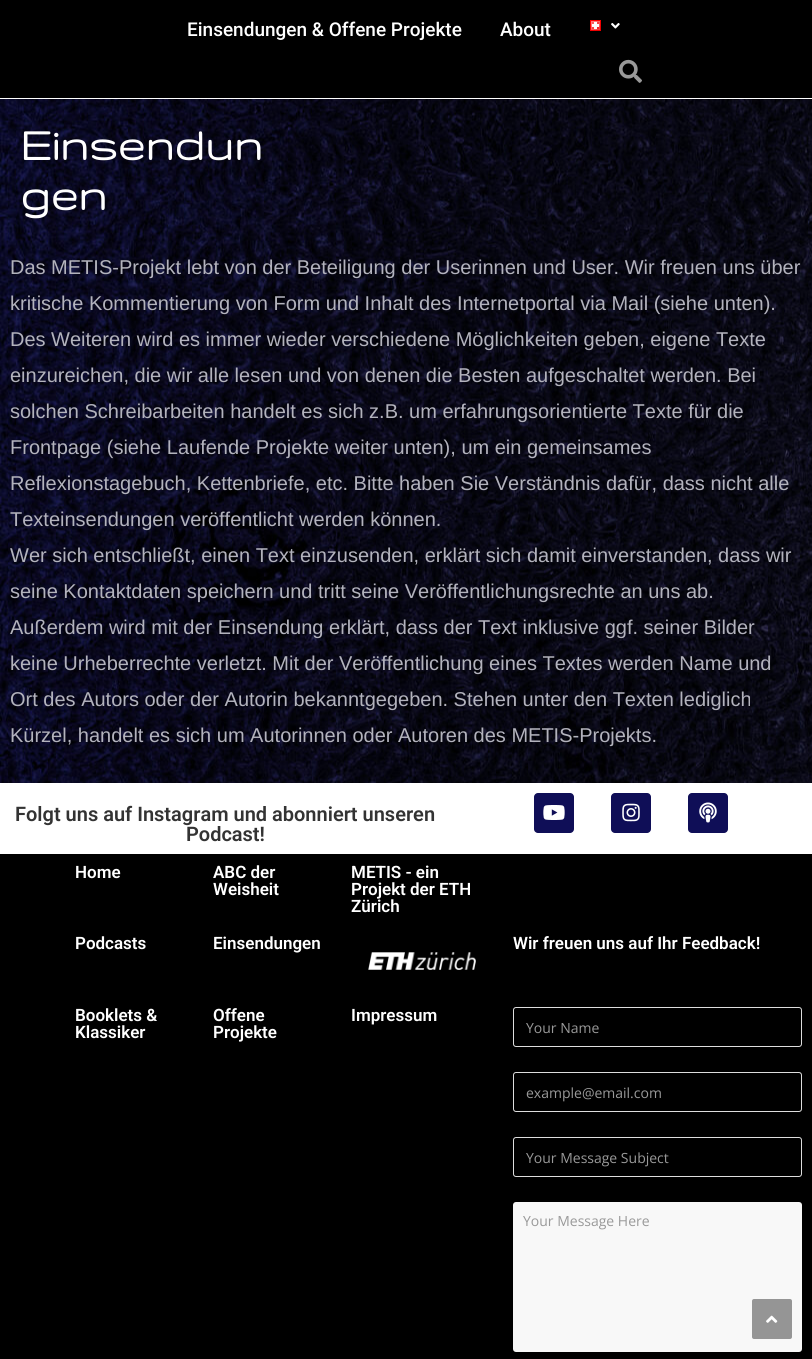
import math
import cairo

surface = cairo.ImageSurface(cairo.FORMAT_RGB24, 812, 1359)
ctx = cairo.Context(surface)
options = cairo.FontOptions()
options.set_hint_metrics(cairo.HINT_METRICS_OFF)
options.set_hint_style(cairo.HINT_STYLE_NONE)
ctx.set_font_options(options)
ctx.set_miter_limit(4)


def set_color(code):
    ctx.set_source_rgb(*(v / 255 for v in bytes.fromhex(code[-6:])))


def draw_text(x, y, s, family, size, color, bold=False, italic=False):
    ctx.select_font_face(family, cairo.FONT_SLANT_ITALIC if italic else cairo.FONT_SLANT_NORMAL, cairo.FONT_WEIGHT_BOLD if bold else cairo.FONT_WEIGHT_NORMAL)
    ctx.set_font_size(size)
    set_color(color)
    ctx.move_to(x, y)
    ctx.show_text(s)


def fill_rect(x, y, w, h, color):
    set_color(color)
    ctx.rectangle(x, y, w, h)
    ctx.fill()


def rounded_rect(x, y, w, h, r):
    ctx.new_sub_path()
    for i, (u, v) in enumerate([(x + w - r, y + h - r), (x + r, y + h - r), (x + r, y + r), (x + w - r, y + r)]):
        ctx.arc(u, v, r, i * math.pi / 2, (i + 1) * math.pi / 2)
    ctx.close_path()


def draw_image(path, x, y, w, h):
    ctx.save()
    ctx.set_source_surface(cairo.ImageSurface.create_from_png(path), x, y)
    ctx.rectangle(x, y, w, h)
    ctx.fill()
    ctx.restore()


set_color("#ffffff")
ctx.paint()
fill_rect(0, 0, 812, 98, "#000000")
draw_text(187, 36, "Einsendungen & Offene Projekte", "Roboto Medium", 19, "#ffffff")
draw_text(500, 36, "About", "Roboto Medium", 19, "#ffffff")
draw_image("assets/img1.png", 590, 20, 11, 11)
draw_image("assets/img2.png", 611, 23, 9, 6)
draw_image("assets/img3.png", 619, 59, 23, 24)
draw_image("assets/img4.png", 0, 99, 812, 684)
draw_text(20, 160, "Einsendun", "Gruppo", 50, "#ffffff", bold=True)
draw_text(20, 210, "gen", "Gruppo", 50, "#ffffff", bold=True)
draw_text(10, 274, "Das METIS-Projekt lebt von der Beteiligung der Userinnen und User. Wir freuen uns über", "Liberation Sans", 20, "#b3b3bd")
draw_text(10, 310, "kritische Kommentierung von Form und Inhalt des Internetportal via Mail (siehe unten).", "Liberation Sans", 20, "#b3b3bd")
draw_text(10, 346, "Des Weiteren wird es immer wieder verschiedene Möglichkeiten geben, eigene Texte", "Liberation Sans", 20, "#b3b3bd")
draw_text(10, 382, "einzureichen, die wir alle lesen und von denen die Besten aufgeschaltet werden. Bei", "Liberation Sans", 20, "#b3b3bd")
draw_text(10, 418, "solchen Schreibarbeiten handelt es sich z.B. um erfahrungsorientierte Texte für die", "Liberation Sans", 20, "#b3b3bd")
draw_text(10, 454, "Frontpage (siehe Laufende Projekte weiter unten), um ein gemeinsames", "Liberation Sans", 20, "#b3b3bd")
draw_text(10, 490, "Reflexionstagebuch, Kettenbriefe, etc. Bitte haben Sie Verständnis dafür, dass nicht alle", "Liberation Sans", 20, "#b3b3bd")
draw_text(10, 526, "Texteinsendungen veröffentlicht werden können.", "Liberation Sans", 20, "#b3b3bd")
draw_text(10, 562, "Wer sich entschließt, einen Text einzusenden, erklärt sich damit einverstanden, dass wir", "Liberation Sans", 20, "#b3b3bd")
draw_text(10, 598, "seine Kontaktdaten speichern und tritt seine Veröffentlichungsrechte an uns ab.", "Liberation Sans", 20, "#b3b3bd")
draw_text(10, 634, "Außerdem wird mit der Einsendung erklärt, dass der Text inklusive ggf. seiner Bilder", "Liberation Sans", 20, "#b3b3bd")
draw_text(10, 670, "keine Urheberrechte verletzt. Mit der Veröffentlichung eines Textes werden Name und", "Liberation Sans", 20, "#b3b3bd")
draw_text(10, 706, "Ort des Autors oder der Autorin bekanntgegeben. Stehen unter den Texten lediglich", "Liberation Sans", 20, "#b3b3bd")
draw_text(10, 742, "Kürzel, handelt es sich um Autorinnen oder Autoren des METIS-Projekts.", "Liberation Sans", 20, "#b3b3bd")
draw_text(15, 821, "Folgt uns auf Instagram und abonniert unseren", "Roboto SemiBold", 20, "#333333")
draw_text(186, 841, "Podcast!", "Roboto SemiBold", 20, "#333333")
set_color("#0f0e57")
rounded_rect(534, 793, 40, 40, 4)
ctx.fill()
draw_image("assets/img5.png", 543, 805, 22, 15)
rounded_rect(611, 793, 40, 40, 4)
ctx.fill()
draw_image("assets/img6.png", 622, 803, 18, 19)
rounded_rect(688, 793, 40, 40, 4)
ctx.fill()
draw_image("assets/img7.png", 699, 802, 18, 21)
fill_rect(0, 854, 812, 505, "#000000")
draw_text(75, 878, "Home", "Roboto SemiBold", 17, "#ffffff")
draw_text(213, 878, "ABC der", "Roboto SemiBold", 17, "#ffffff")
draw_text(213, 895, "Weisheit", "Roboto SemiBold", 17, "#ffffff")
draw_text(351, 878, "METIS - ein", "Roboto SemiBold", 17, "#ffffff")
draw_text(351, 895, "Projekt der ETH", "Roboto SemiBold", 17, "#ffffff")
draw_text(351, 912, "Zürich", "Roboto SemiBold", 17, "#ffffff")
draw_text(75, 949, "Podcasts", "Roboto SemiBold", 17, "#ffffff")
draw_text(213, 949, "Einsendungen", "Roboto SemiBold", 17, "#ffffff")
draw_text(513, 949, "Wir freuen uns auf Ihr Feedback!", "Roboto SemiBold", 17, "#ffffff")
draw_image("assets/img8.png", 368, 952, 108, 18)
draw_text(75, 1021, "Booklets &", "Roboto SemiBold", 17, "#ffffff")
draw_text(75, 1038, "Klassiker", "Roboto SemiBold", 17, "#ffffff")
draw_text(213, 1021, "Offene", "Roboto SemiBold", 17, "#ffffff")
draw_text(213, 1038, "Projekte", "Roboto SemiBold", 17, "#ffffff")
draw_text(351, 1021, "Impressum", "Roboto SemiBold", 17, "#ffffff")
rounded_rect(513.5, 1007.5, 288, 39, 2.5)
set_color("#dddddd")
ctx.set_line_width(1)
ctx.stroke()
draw_text(526, 1033, "Your Name", "Open Sans", 14, "#999999")
rounded_rect(513.5, 1072.5, 288, 39, 2.5)
set_color("#dddddd")
ctx.stroke()
draw_text(526, 1098, "example@email.com", "Open Sans", 14, "#999999")
rounded_rect(513.5, 1137.5, 288, 39, 2.5)
set_color("#dddddd")
ctx.stroke()
draw_text(526, 1163, "Your Message Subject", "Open Sans", 14, "#999999")
set_color("#f8f8f8")
rounded_rect(513, 1202, 289, 150, 3)
ctx.fill()
draw_text(523, 1226, "Your Message Here", "Open Sans", 14, "#999999")
set_color("#959595")
rounded_rect(752, 1299, 40, 40, 2)
ctx.fill()
draw_image("assets/img9.png", 766, 1315, 12, 8)
surface.write_to_png("output.png")
